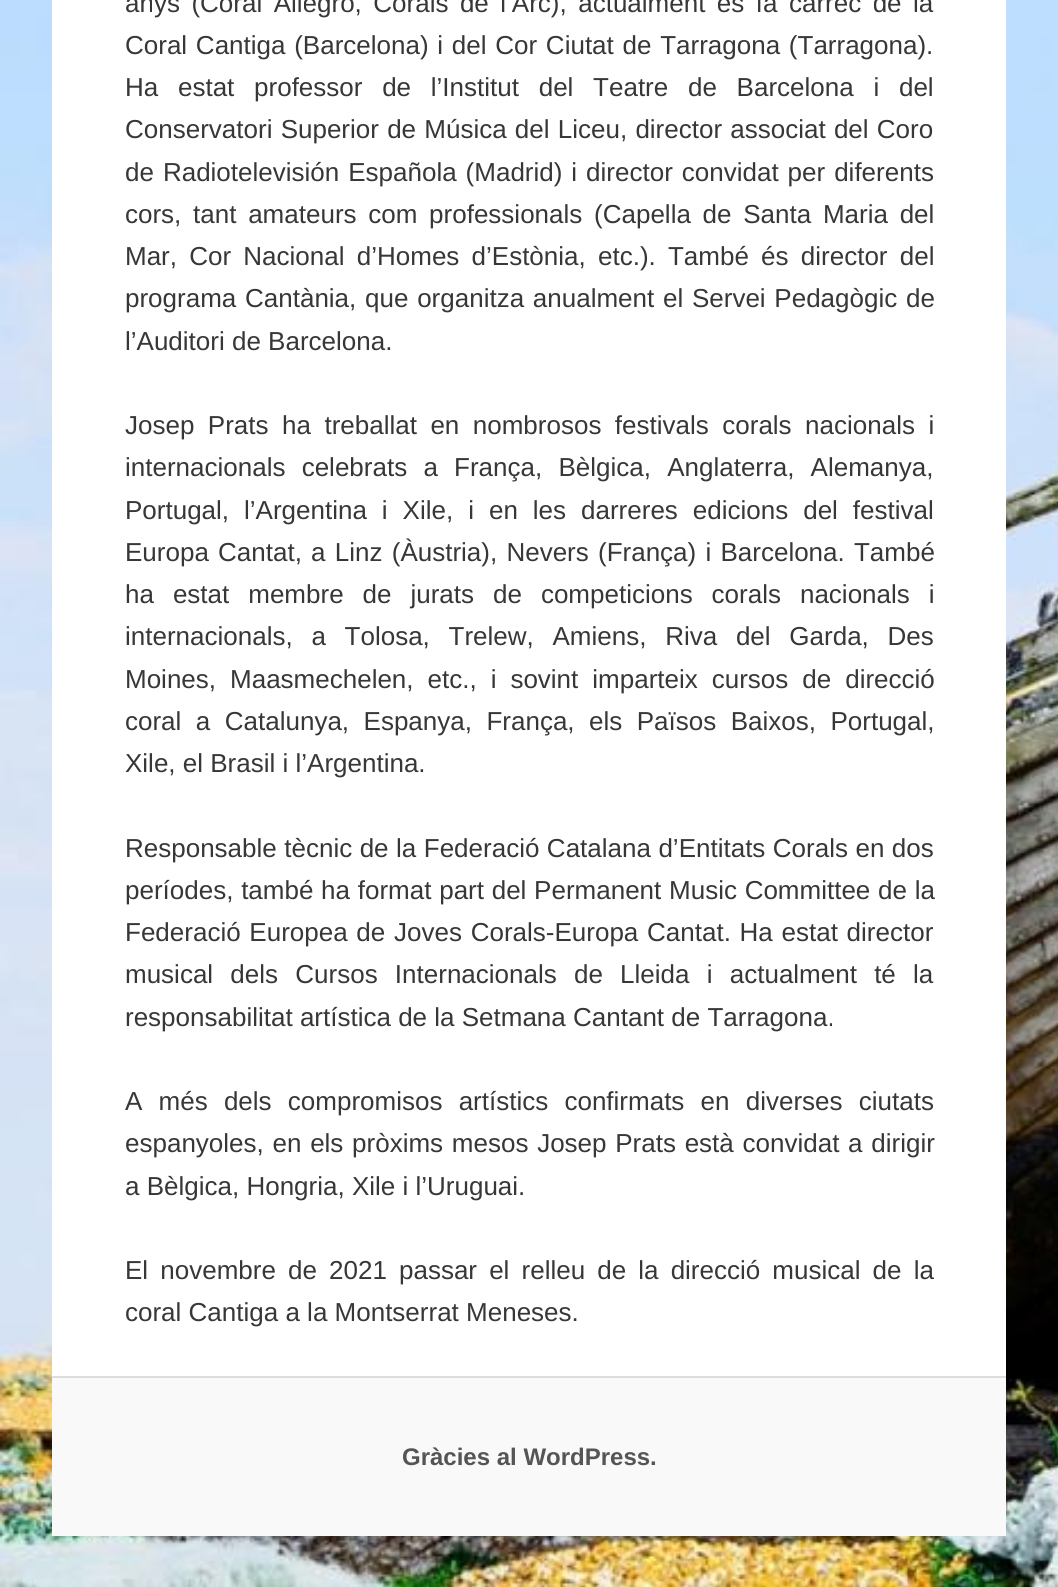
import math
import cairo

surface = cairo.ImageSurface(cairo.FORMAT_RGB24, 1058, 1587)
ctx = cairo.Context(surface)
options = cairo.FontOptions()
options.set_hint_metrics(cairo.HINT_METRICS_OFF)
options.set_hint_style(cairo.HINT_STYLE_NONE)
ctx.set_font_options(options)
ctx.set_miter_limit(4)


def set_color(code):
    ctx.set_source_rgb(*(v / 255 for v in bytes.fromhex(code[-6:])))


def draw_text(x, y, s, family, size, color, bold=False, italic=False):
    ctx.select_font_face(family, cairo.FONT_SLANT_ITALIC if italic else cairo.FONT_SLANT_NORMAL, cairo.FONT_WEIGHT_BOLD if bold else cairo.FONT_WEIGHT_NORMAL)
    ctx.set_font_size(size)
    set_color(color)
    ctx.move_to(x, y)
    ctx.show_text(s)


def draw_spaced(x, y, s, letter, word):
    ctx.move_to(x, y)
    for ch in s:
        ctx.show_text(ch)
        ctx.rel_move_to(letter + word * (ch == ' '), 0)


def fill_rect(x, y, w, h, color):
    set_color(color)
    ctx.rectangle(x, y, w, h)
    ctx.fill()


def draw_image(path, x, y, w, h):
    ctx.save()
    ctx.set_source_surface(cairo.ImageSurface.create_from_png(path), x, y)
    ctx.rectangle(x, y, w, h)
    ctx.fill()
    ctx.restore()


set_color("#ffffff")
ctx.paint()
draw_image("assets/img1.png", 0, 0, 1058, 1587)
fill_rect(52, 0, 954, 1376, "#ffffff")
ctx.select_font_face("Liberation Sans")
ctx.set_font_size(26)
set_color("#373737")
draw_spaced(125, 12, "anys (Coral Allegro, Corals de l’Arc), actualment es fa càrrec de la", 0, 4.25)
draw_spaced(125, 54, "Coral Cantiga (Barcelona) i del Cor Ciutat de Tarragona (Tarragona).", 0, 1.5)
draw_spaced(125, 96, "Ha estat professor de l’Institut del Teatre de Barcelona i del", 0, 12.5)
draw_spaced(125, 138, "Conservatori Superior de Música del Liceu, director associat del Coro", 0, 1)
draw_spaced(125, 181, "de Radiotelevisión Española (Madrid) i director convidat per diferents", 0, 1.75)
draw_spaced(125, 223, "cors, tant amateurs com professionals (Capella de Santa Maria del", 0, 4.5)
draw_spaced(125, 265, "Mar, Cor Nacional d’Homes d’Estònia, etc.). També és director del", 0, 5)
draw_spaced(125, 307, "programa Cantània, que organitza anualment el Servei Pedagògic de", 0, 1.5)
draw_text(125, 350, "l’Auditori de Barcelona.", "Liberation Sans", 26, "#373737")
draw_spaced(125, 434, "Josep Prats ha treballat en nombrosos festivals corals nacionals i", 0, 6.25)
draw_spaced(125, 476, "internacionals celebrats a França, Bèlgica, Anglaterra, Alemanya,", 0, 9)
draw_spaced(125, 519, "Portugal, l’Argentina i Xile, i en les darreres edicions del festival", 0, 7.75)
draw_spaced(125, 561, "Europa Cantat, a Linz (Àustria), Nevers (França) i Barcelona. També", 0, 2)
draw_spaced(125, 603, "ha estat membre de jurats de competicions corals nacionals i", 0, 11.75)
draw_spaced(125, 645, "internacionals, a Tolosa, Trelew, Amiens, Riva del Garda, Des", 0, 11.5)
draw_spaced(125, 688, "Moines, Maasmechelen, etc., i sovint imparteix cursos de direcció", 0, 6.75)
draw_spaced(125, 730, "coral a Catalunya, Espanya, França, els Països Baixos, Portugal,", 0, 7.25)
draw_text(125, 772, "Xile, el Brasil i l’Argentina.", "Liberation Sans", 26, "#373737")
draw_spaced(125, 857, "Responsable tècnic de la Federació Catalana d’Entitats Corals en dos", 0, 0.25)
draw_spaced(125, 899, "períodes, també ha format part del Permanent Music Committee de la", 0, 0.5)
draw_spaced(125, 941, "Federació Europea de Joves Corals-Europa Cantat. Ha estat director", 0, 1.5)
draw_spaced(125, 983, "musical dels Cursos Internacionals de Lleida i actualment té la", 0, 10)
draw_text(125, 1026, "responsabilitat artística de la Setmana Cantant de Tarragona.", "Liberation Sans", 26, "#373737")
draw_spaced(125, 1110, "A més dels compromisos artístics confirmats en diverses ciutats", 0, 9)
draw_spaced(125, 1152, "espanyoles, en els pròxims mesos Josep Prats està convidat a dirigir", 0, 1.5)
draw_text(125, 1195, "a Bèlgica, Hongria, Xile i l’Uruguai.", "Liberation Sans", 26, "#373737")
draw_spaced(125, 1279, "El novembre de 2021 passar el relleu de la direcció musical de la", 0, 4.9)
draw_text(125, 1321, "coral Cantiga a la Montserrat Meneses.", "Liberation Sans", 26, "#373737")
fill_rect(52, 1378, 954, 158, "#f9f9f9")
fill_rect(52, 1376, 954, 2, "#dddddd")
draw_text(402, 1465, "Gràcies al WordPress.", "Liberation Sans", 24, "#555555", bold=True)
surface.write_to_png("output.png")
